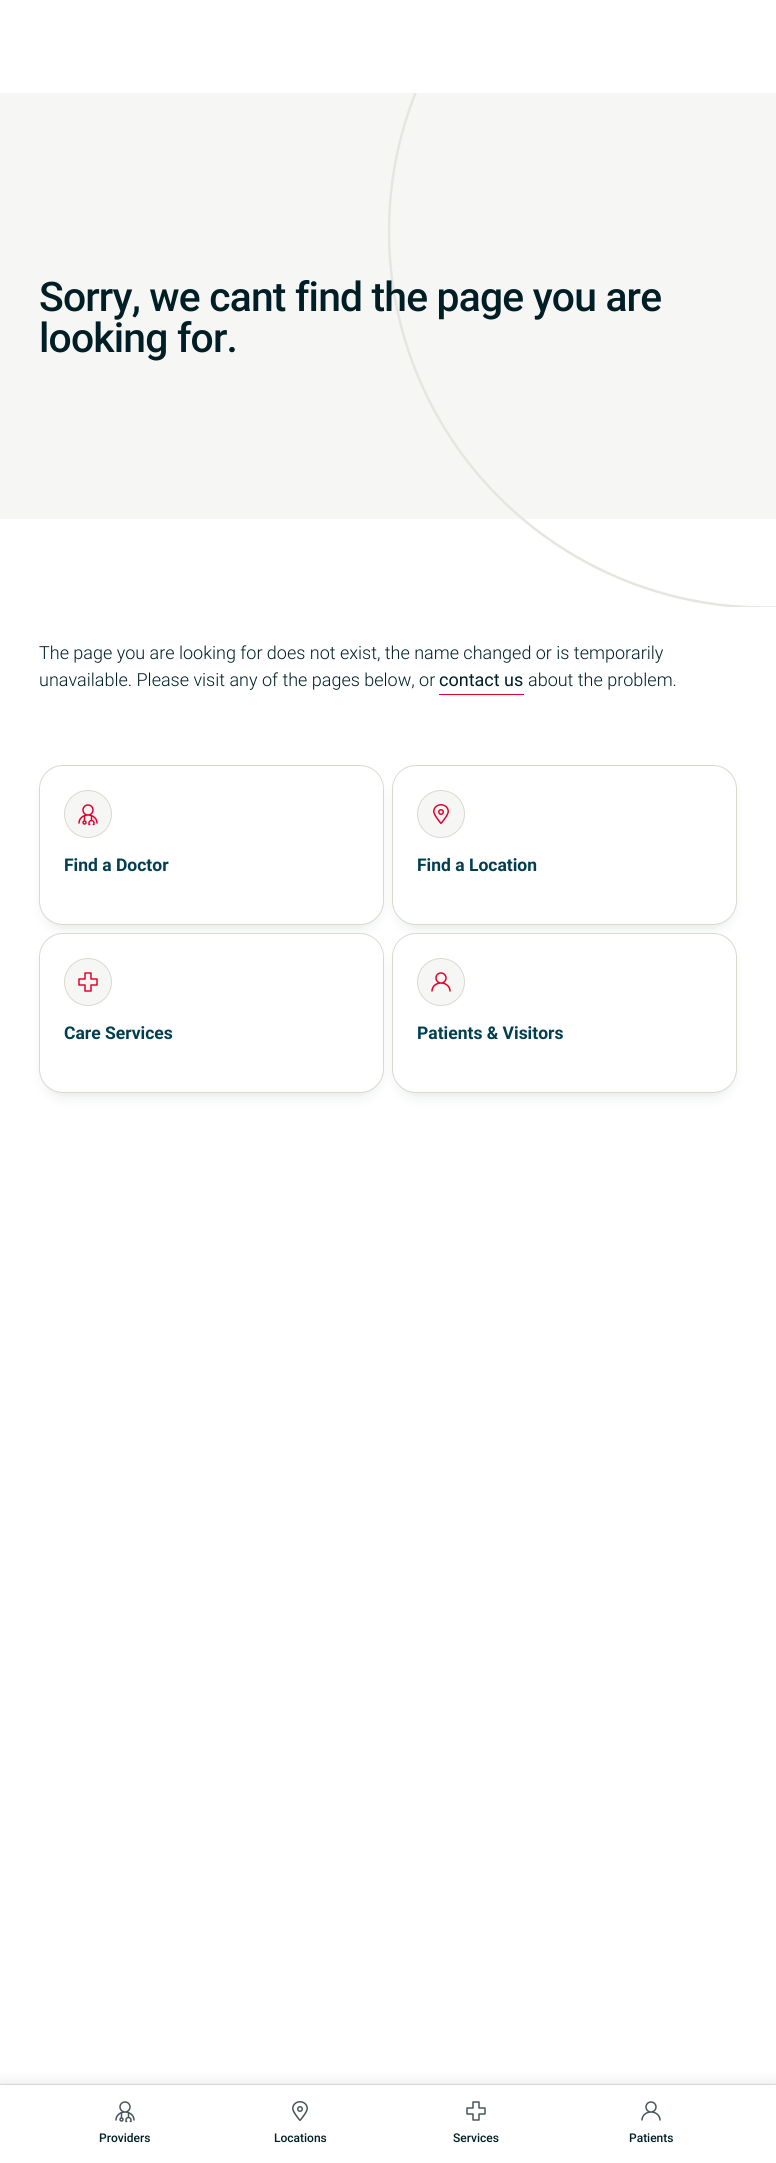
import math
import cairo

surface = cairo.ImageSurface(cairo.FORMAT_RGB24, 776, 2163)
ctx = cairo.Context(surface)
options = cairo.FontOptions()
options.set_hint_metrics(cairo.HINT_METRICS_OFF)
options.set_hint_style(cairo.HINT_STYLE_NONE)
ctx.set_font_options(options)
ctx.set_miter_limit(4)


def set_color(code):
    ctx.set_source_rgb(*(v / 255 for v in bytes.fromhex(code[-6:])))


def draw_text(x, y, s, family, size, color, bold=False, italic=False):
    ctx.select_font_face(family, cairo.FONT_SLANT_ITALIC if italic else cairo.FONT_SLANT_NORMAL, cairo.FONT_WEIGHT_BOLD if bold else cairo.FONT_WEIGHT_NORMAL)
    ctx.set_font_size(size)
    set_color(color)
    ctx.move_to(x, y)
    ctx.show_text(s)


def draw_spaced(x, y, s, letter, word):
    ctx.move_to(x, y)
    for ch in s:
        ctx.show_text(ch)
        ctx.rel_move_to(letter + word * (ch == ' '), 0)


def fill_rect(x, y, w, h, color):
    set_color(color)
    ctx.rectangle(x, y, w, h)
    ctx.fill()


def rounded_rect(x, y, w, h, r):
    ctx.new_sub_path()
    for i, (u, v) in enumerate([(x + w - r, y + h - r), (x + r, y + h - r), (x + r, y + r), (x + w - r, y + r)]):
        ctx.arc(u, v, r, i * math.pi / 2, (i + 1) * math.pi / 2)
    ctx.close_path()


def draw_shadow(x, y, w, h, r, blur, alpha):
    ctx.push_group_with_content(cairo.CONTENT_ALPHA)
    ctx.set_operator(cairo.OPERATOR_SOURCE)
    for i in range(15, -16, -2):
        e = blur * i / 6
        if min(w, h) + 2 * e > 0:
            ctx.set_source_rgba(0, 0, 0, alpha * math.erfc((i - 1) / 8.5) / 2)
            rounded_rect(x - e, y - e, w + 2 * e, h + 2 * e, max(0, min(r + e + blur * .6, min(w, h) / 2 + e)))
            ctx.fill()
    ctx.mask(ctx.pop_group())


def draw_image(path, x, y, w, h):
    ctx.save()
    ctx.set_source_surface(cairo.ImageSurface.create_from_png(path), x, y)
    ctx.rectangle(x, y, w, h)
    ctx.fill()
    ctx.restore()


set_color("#ffffff")
ctx.paint()
fill_rect(0, 93, 776, 426, "#f6f6f4")
ctx.save()
ctx.rectangle(388, 93, 388, 514)
ctx.clip()
ctx.arc(765, 231.5, 376, 0, 2 * math.pi)
set_color("#e6e6e0")
ctx.set_line_width(2.5)
ctx.stroke()
ctx.restore()
ctx.select_font_face("Roboto Medium")
ctx.set_font_size(40.8)
set_color("#001e26")
draw_spaced(39, 311, "Sorry, we cant find the page you are", -0.8, 0)
draw_spaced(39, 352, "looking for.", -0.8, 0)
draw_text(39, 659, "The page you are looking for does not exist, the name changed or is temporarily", "Roboto Light", 18, "#001e26")
draw_text(39, 686, "unavailable. Please visit any of the pages below, or", "Roboto Light", 18, "#001e26")
draw_text(439, 686, "contact us", "Roboto", 18, "#001e26")
fill_rect(439, 694, 85, 1, "#e4002b")
draw_text(528, 686, "about the problem.", "Roboto Light", 18, "#001e26")
set_color("#001e26")
draw_shadow(47, 781, 329, 144, 16, 8, 0.15)
set_color("#ffffff")
rounded_rect(39.5, 765.5, 344, 159, 23.5)
ctx.fill_preserve()
set_color("#d9d9cf")
ctx.set_line_width(1)
ctx.stroke()
set_color("#f6f6f4")
ctx.arc(88, 814, 23.5, 0, 2 * math.pi)
ctx.fill_preserve()
set_color("#d9d9cf")
ctx.stroke()
draw_image("assets/img1.png", 78, 804, 20, 22)
draw_text(64, 871, "Find a Doctor", "Roboto", 17.5, "#003f51", bold=True)
set_color("#001e26")
draw_shadow(400, 781, 329, 144, 16, 8, 0.15)
set_color("#ffffff")
rounded_rect(392.5, 765.5, 344, 159, 23.5)
ctx.fill_preserve()
set_color("#d9d9cf")
ctx.stroke()
set_color("#f6f6f4")
ctx.arc(441, 814, 23.5, 0, 2 * math.pi)
ctx.fill_preserve()
set_color("#d9d9cf")
ctx.stroke()
draw_image("assets/img2.png", 433, 804, 16, 20)
draw_text(417, 871, "Find a Location", "Roboto", 17.5, "#003f51", bold=True)
set_color("#001e26")
draw_shadow(47, 949, 329, 144, 16, 8, 0.15)
set_color("#ffffff")
rounded_rect(39.5, 933.5, 344, 159, 23.5)
ctx.fill_preserve()
set_color("#d9d9cf")
ctx.stroke()
set_color("#f6f6f4")
ctx.arc(88, 982, 23.5, 0, 2 * math.pi)
ctx.fill_preserve()
set_color("#d9d9cf")
ctx.stroke()
draw_image("assets/img3.png", 78, 972, 20, 20)
draw_text(64, 1039, "Care Services", "Roboto", 17.5, "#003f51", bold=True)
set_color("#001e26")
draw_shadow(400, 949, 329, 144, 16, 8, 0.15)
set_color("#ffffff")
rounded_rect(392.5, 933.5, 344, 159, 23.5)
ctx.fill_preserve()
set_color("#d9d9cf")
ctx.stroke()
set_color("#f6f6f4")
ctx.arc(441, 982, 23.5, 0, 2 * math.pi)
ctx.fill_preserve()
set_color("#d9d9cf")
ctx.stroke()
draw_image("assets/img4.png", 431, 972, 20, 20)
draw_text(417, 1039, "Patients & Visitors", "Roboto", 17.5, "#003f51", bold=True)
set_color("#001e26")
draw_shadow(0, 2082, 776, 79, 0, 6, 0.1)
fill_rect(0, 2085, 776, 78, "#ffffff")
fill_rect(0, 2084, 776, 1, "#d9d9cf")
draw_image("assets/img5.png", 115, 2101, 20, 22)
draw_text(99, 2142, "Providers", "Roboto Medium", 12, "#001e26")
draw_image("assets/img6.png", 292, 2101, 16, 20)
draw_text(274, 2142, "Locations", "Roboto Medium", 12, "#001e26")
draw_image("assets/img7.png", 466, 2101, 20, 20)
draw_text(453, 2142, "Services", "Roboto Medium", 12, "#001e26")
draw_image("assets/img8.png", 641, 2101, 20, 20)
draw_text(629, 2142, "Patients", "Roboto Medium", 12, "#001e26")
surface.write_to_png("output.png")
